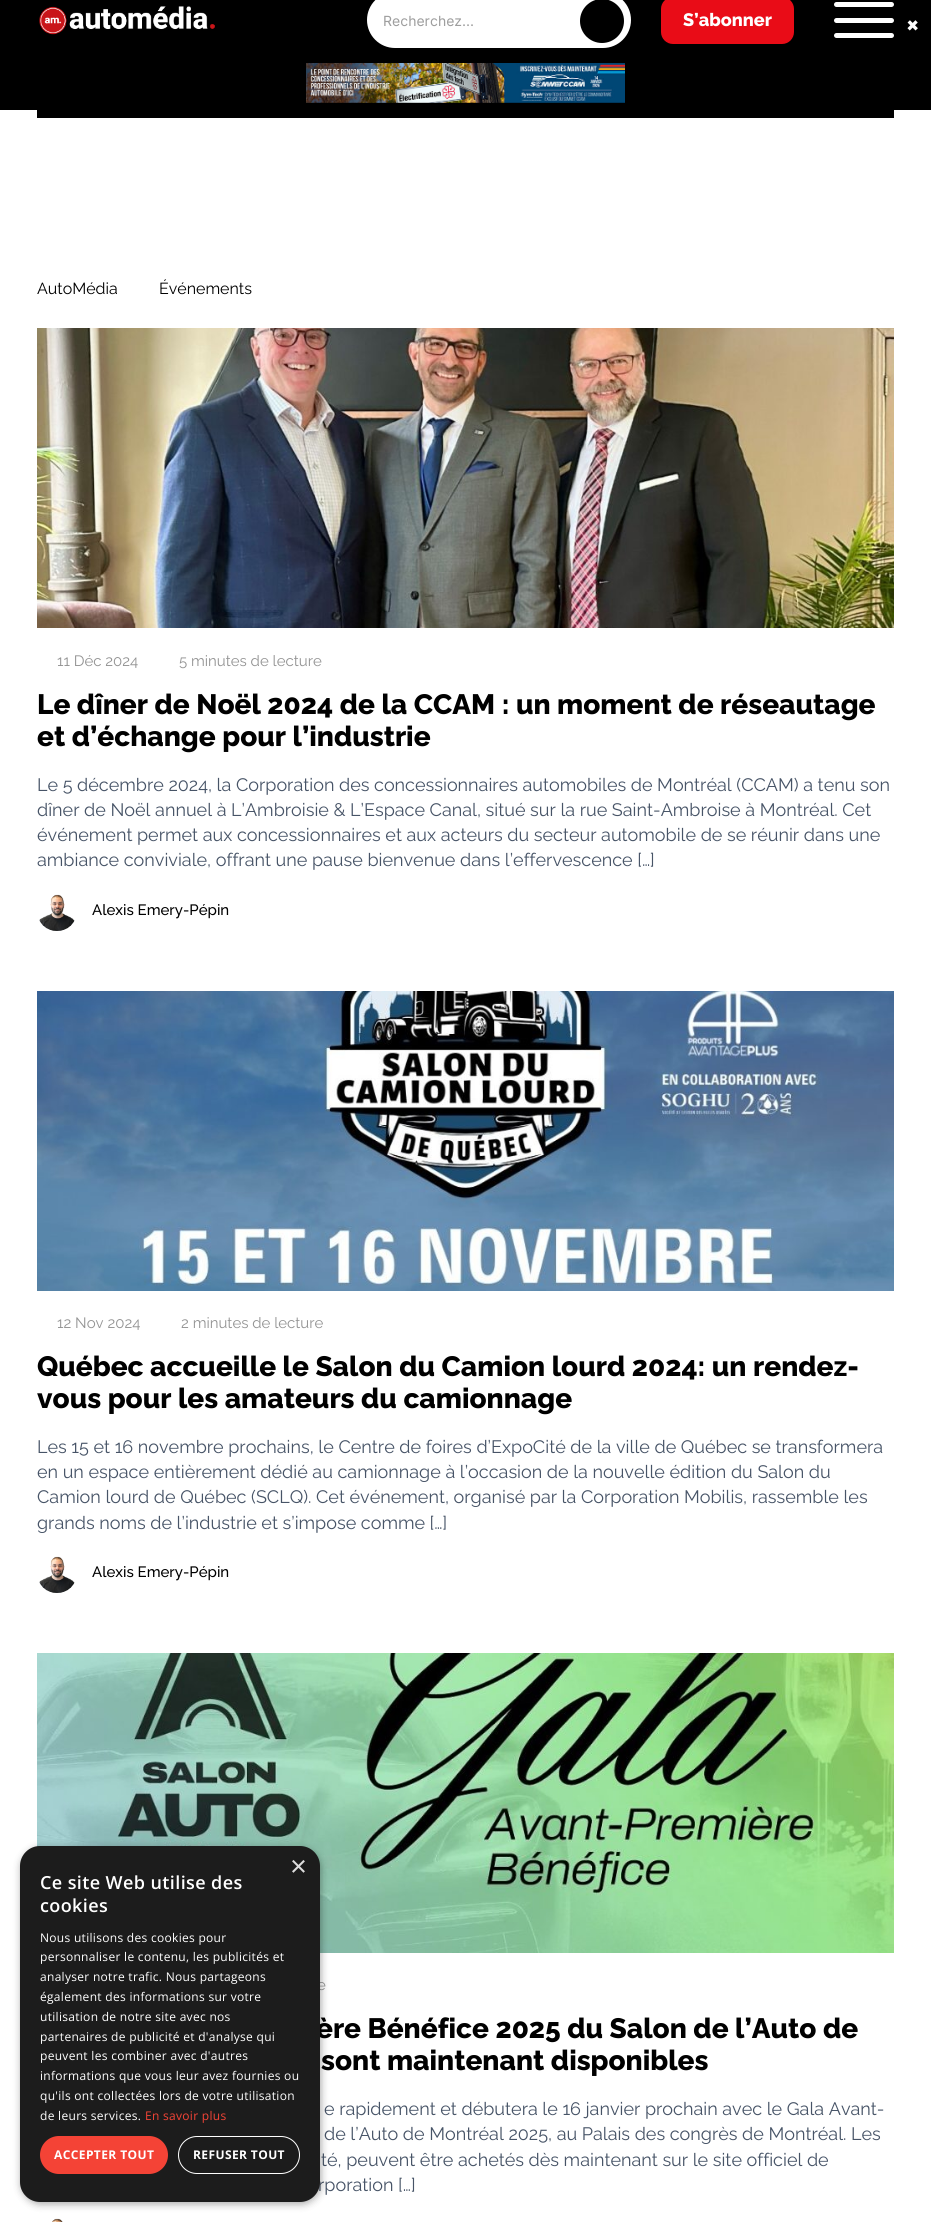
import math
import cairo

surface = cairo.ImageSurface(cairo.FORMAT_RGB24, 931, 2222)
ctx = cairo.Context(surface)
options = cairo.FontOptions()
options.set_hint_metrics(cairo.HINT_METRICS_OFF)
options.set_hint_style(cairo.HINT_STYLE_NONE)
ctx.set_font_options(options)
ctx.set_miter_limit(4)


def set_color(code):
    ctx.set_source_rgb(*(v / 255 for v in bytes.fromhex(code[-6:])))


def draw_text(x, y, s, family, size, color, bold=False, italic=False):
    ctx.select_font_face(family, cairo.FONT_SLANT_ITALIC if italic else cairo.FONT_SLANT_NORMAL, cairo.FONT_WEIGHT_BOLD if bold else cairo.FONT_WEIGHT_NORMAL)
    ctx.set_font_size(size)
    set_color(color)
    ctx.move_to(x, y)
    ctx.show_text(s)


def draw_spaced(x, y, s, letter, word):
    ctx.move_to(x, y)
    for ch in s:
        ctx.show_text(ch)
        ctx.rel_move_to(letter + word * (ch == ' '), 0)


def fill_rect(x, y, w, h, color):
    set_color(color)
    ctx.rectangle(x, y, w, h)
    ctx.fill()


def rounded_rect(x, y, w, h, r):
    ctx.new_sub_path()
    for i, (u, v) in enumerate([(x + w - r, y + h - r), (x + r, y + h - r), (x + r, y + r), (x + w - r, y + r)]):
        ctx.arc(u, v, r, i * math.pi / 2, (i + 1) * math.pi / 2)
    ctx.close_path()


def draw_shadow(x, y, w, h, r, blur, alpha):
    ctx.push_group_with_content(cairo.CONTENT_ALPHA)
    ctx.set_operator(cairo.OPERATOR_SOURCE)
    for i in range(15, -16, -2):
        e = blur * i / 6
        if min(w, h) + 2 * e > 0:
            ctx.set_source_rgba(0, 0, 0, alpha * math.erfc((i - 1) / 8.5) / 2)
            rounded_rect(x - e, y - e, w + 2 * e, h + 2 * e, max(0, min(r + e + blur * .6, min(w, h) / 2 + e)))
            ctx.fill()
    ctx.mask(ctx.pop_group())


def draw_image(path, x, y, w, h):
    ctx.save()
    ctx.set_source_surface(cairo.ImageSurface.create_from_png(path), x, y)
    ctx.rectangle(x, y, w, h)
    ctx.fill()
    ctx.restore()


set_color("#ffffff")
ctx.paint()
fill_rect(0, 0, 931, 110, "#000000")
draw_image("assets/img1.png", 39, 6, 176, 29)
set_color("#ffffff")
rounded_rect(367, -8, 264, 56, 28)
ctx.fill()
draw_text(383, 26, "Recherchez...", "Inter", 14, "#9e9e9e")
set_color("#000000")
ctx.new_path()
ctx.arc(602, 21, 22, 0, 2 * math.pi)
ctx.fill()
set_color("#e90c17")
rounded_rect(661, -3, 133, 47, 12)
ctx.fill()
draw_text(683, 26, "S’abonner", "Raleway ExtraBold", 18, "#ffffff")
rounded_rect(834, 2, 60, 5, 2.5)
ctx.fill()
rounded_rect(834, 18, 60, 5, 2.5)
ctx.fill()
rounded_rect(834, 33, 60, 5, 2.5)
ctx.fill()
fill_rect(37, 110, 857, 8, "#000000")
draw_image("assets/img2.png", 306, 63, 319, 40)
draw_text(906, 33, "×", "Raleway", 28, "#ffffff", bold=True)
draw_text(37, 294, "AutoMédia", "Raleway", 16, "#000000")
draw_text(159, 294, "Événements", "Raleway", 16, "#000000")
draw_image("assets/img3.png", 37, 328, 857, 300)
draw_text(57, 666, "11 Déc 2024", "Raleway", 15, "#939393")
draw_text(179, 666, "5 minutes de lecture", "Raleway", 15, "#939393")
draw_text(37, 714, "Le dîner de Noël 2024 de la CCAM : un moment de réseautage", "Raleway ExtraBold", 28, "#000000")
draw_text(37, 746, "et d’échange pour l’industrie", "Raleway ExtraBold", 28, "#000000")
draw_text(37, 791, "Le 5 décembre 2024, la Corporation des concessionnaires automobiles de Montréal (CCAM) a tenu son", "Raleway", 18, "#475467")
draw_text(37, 816, "dîner de Noël annuel à L’Ambroisie & L’Espace Canal, situé sur la rue Saint-Ambroise à Montréal. Cet", "Raleway", 18, "#475467")
draw_text(37, 841, "événement permet aux concessionnaires et aux acteurs du secteur automobile de se réunir dans une", "Raleway", 18, "#475467")
draw_text(37, 866, "ambiance conviviale, offrant une pause bienvenue dans l’effervescence […]", "Raleway", 18, "#475467")
draw_image("assets/img4.png", 39, 894, 36, 37)
draw_text(92, 915, "Alexis Emery-Pépin", "Raleway Medium", 15, "#000000")
draw_image("assets/img5.png", 37, 991, 857, 300)
draw_text(57, 1328, "12 Nov 2024", "Raleway", 15, "#939393")
draw_text(181, 1328, "2 minutes de lecture", "Raleway", 15, "#939393")
draw_text(37, 1376, "Québec accueille le Salon du Camion lourd 2024: un rendez-", "Raleway ExtraBold", 28, "#000000")
draw_text(37, 1408, "vous pour les amateurs du camionnage", "Raleway ExtraBold", 28, "#000000")
draw_text(37, 1453, "Les 15 et 16 novembre prochains, le Centre de foires d’ExpoCité de la ville de Québec se transformera", "Raleway", 18, "#475467")
draw_text(37, 1478, "en un espace entièrement dédié au camionnage à l’occasion de la nouvelle édition du Salon du", "Raleway", 18, "#475467")
draw_text(37, 1503, "Camion lourd de Québec (SCLQ). Cet événement, organisé par la Corporation Mobilis, rassemble les", "Raleway", 18, "#475467")
draw_text(37, 1529, "grands noms de l’industrie et s’impose comme […]", "Raleway", 18, "#475467")
draw_image("assets/img6.png", 39, 1556, 36, 37)
draw_text(92, 1577, "Alexis Emery-Pépin", "Raleway Medium", 15, "#000000")
draw_image("assets/img7.png", 37, 1653, 857, 300)
draw_text(317, 1990, "e", "Raleway", 15, "#939393")
draw_text(316, 2038, "ère Bénéfice 2025 du Salon de l’Auto de", "Raleway ExtraBold", 28, "#000000")
draw_text(321, 2070, "sont maintenant disponibles", "Raleway ExtraBold", 28, "#000000")
draw_text(324, 2115, "e rapidement et débutera le 16 janvier prochain avec le Gala Avant-", "Raleway", 18, "#475467")
draw_text(324, 2140, "de l’Auto de Montréal 2025, au Palais des congrès de Montréal. Les", "Raleway", 18, "#475467")
draw_text(321, 2166, "té, peuvent être achetés dès maintenant sur le site officiel de", "Raleway", 18, "#475467")
draw_text(318, 2191, "rporation […]", "Raleway", 18, "#475467")
draw_image("assets/img8.png", 52, 2218, 11, 4)
set_color("#000000")
draw_shadow(21, 1848, 300, 356, 20, 4, 0.35)
set_color("#1c1c1c")
rounded_rect(20, 1846, 300, 356, 20)
ctx.fill()
draw_text(290, 1876, "×", "Liberation Sans", 29, "#dddddd")
ctx.select_font_face("Open Sans SemiBold")
ctx.set_font_size(18)
set_color("#ffffff")
draw_spaced(40, 1889, "Ce site Web utilise des", 0.4, 0)
draw_spaced(40, 1912, "cookies", 0.4, 0)
ctx.select_font_face("Open Sans")
ctx.set_font_size(12)
draw_spaced(40, 1942, "Nous utilisons des cookies pour", 0.3, 0)
draw_spaced(40, 1961, "personnaliser le contenu, les publicités et", 0.3, 0)
draw_spaced(40, 1981, "analyser notre trafic. Nous partageons", 0.3, 0)
draw_spaced(40, 2001, "également des informations sur votre", 0.3, 0)
draw_spaced(40, 2021, "utilisation de notre site avec nos", 0.3, 0)
draw_spaced(40, 2041, "partenaires de publicité et d'analyse qui", 0.3, 0)
draw_spaced(40, 2060, "peuvent les combiner avec d'autres", 0.3, 0)
draw_spaced(40, 2080, "informations que vous leur avez fournies ou", 0.3, 0)
draw_spaced(40, 2100, "qu'ils ont collectées lors de votre utilisation", 0.3, 0)
draw_spaced(40, 2120, "de leurs services.", 0.3, 0)
set_color("#f44336")
draw_spaced(145, 2120, "En savoir plus", 0.3, 0)
rounded_rect(40, 2136, 128, 38, 19)
ctx.fill()
ctx.select_font_face("Open Sans", cairo.FONT_SLANT_NORMAL, cairo.FONT_WEIGHT_BOLD)
set_color("#ffffff")
draw_spaced(54, 2159, "ACCEPTER TOUT", 0.4, 0)
rounded_rect(178.5, 2136.5, 121, 37, 18.5)
ctx.set_line_width(1)
ctx.stroke()
draw_spaced(193, 2159, "REFUSER TOUT", 0.4, 0)
surface.write_to_png("output.png")
